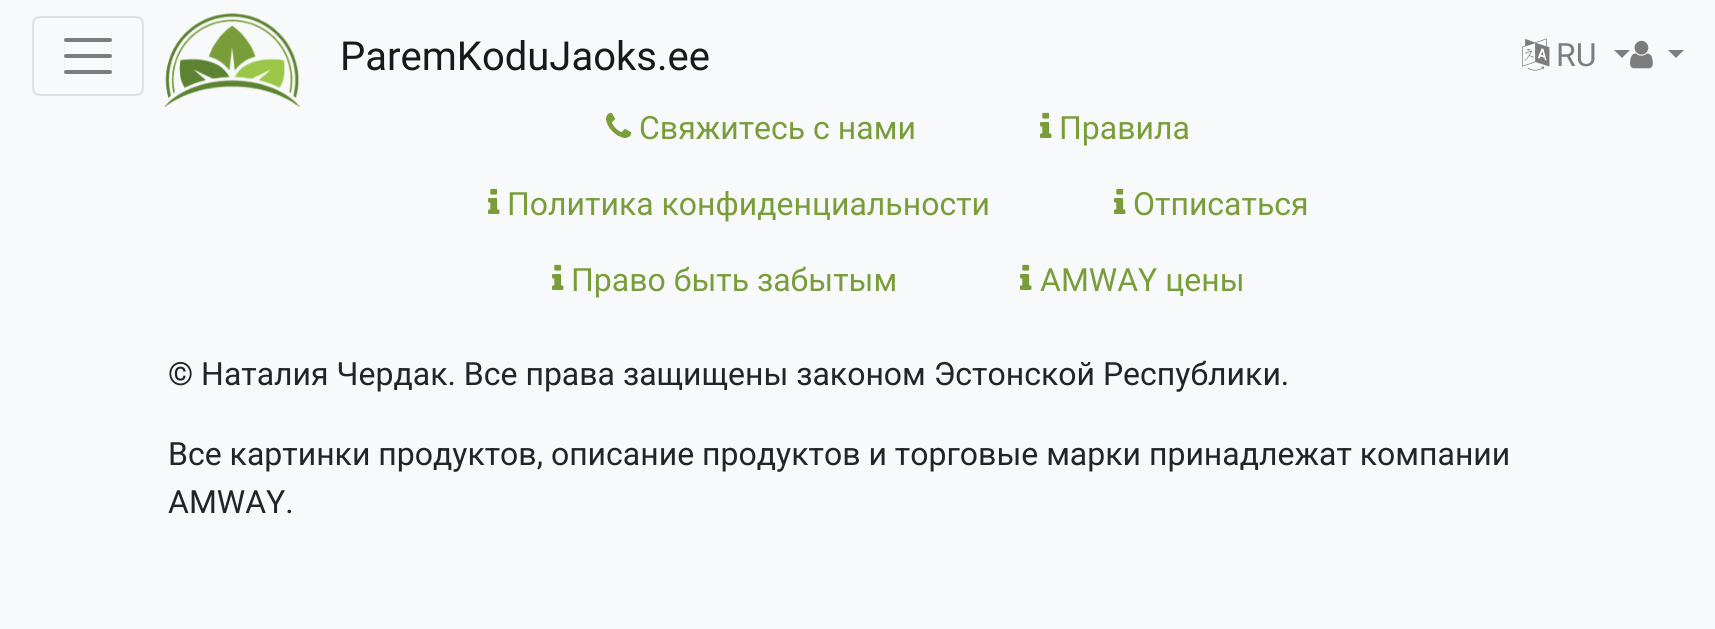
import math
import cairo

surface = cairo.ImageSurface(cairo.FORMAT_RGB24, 1715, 629)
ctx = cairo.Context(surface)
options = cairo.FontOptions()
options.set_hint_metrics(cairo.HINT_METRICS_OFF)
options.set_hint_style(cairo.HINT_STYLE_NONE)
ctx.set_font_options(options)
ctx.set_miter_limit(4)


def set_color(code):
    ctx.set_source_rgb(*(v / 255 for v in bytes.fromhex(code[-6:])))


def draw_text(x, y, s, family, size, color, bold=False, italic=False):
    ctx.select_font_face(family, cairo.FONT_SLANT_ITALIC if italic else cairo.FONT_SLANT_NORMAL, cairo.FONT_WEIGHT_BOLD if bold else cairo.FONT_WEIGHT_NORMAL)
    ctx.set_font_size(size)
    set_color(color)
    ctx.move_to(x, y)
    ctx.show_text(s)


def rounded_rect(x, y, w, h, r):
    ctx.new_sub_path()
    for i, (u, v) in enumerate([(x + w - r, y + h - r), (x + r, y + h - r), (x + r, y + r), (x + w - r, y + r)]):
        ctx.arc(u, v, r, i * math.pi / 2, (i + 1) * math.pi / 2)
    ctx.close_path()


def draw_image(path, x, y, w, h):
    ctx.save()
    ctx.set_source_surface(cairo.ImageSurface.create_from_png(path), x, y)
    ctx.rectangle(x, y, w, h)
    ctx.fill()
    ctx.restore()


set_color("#f8f9fa")
ctx.paint()
rounded_rect(33, 17, 110, 78, 7)
set_color("#dfe0e1")
ctx.stroke()
ctx.new_path()
ctx.move_to(66, 40)
ctx.line_to(110, 40)
ctx.move_to(66, 56)
ctx.line_to(110, 56)
ctx.move_to(66, 72)
ctx.line_to(110, 72)
set_color("#7c7d7d")
ctx.set_line_width(4)
ctx.set_line_cap(cairo.LINE_CAP_ROUND)
ctx.stroke()
draw_image("assets/img1.png", 164, 13, 137, 95)
draw_text(340, 70, "ParemKoduJaoks.ee", "Roboto", 40, "#191919")
draw_image("assets/img2.png", 1522, 38, 28, 33)
draw_text(1556, 66, "RU", "Roboto", 32, "#7c7d7d")
ctx.new_path()
ctx.move_to(1614, 50)
ctx.line_to(1630, 50)
ctx.line_to(1622, 58)
ctx.close_path()
ctx.fill()
draw_image("assets/img3.png", 1630, 40, 23, 29)
ctx.new_path()
ctx.move_to(1668, 50)
ctx.line_to(1684, 50)
ctx.line_to(1676, 58)
ctx.close_path()
ctx.fill()
draw_image("assets/img4.png", 606, 112, 26, 26)
draw_text(639, 139, "Свяжитесь с нами", "Roboto", 32, "#789d39")
draw_image("assets/img5.png", 1040, 112, 12, 26)
draw_text(1059, 139, "Правила", "Roboto", 32, "#789d39")
draw_image("assets/img5.png", 488, 188, 12, 26)
draw_text(507, 215, "Политика конфиденциальности", "Roboto", 32, "#789d39")
draw_image("assets/img5.png", 1114, 188, 12, 26)
draw_text(1133, 215, "Отписаться", "Roboto", 32, "#789d39")
draw_image("assets/img5.png", 552, 264, 12, 26)
draw_text(571, 291, "Право быть забытым", "Roboto", 32, "#789d39")
draw_image("assets/img5.png", 1020, 264, 12, 26)
draw_text(1040, 291, "AMWAY цены", "Roboto", 32, "#789d39")
draw_text(168, 385, "© Наталия Чердак. Все права защищены законом Эстонской Республики.", "Roboto", 32, "#212529")
draw_text(168, 465, "Все картинки продуктов, описание продуктов и торговые марки принадлежат компании", "Roboto", 32, "#212529")
draw_text(168, 513, "AMWAY.", "Roboto", 32, "#212529")
surface.write_to_png("output.png")
